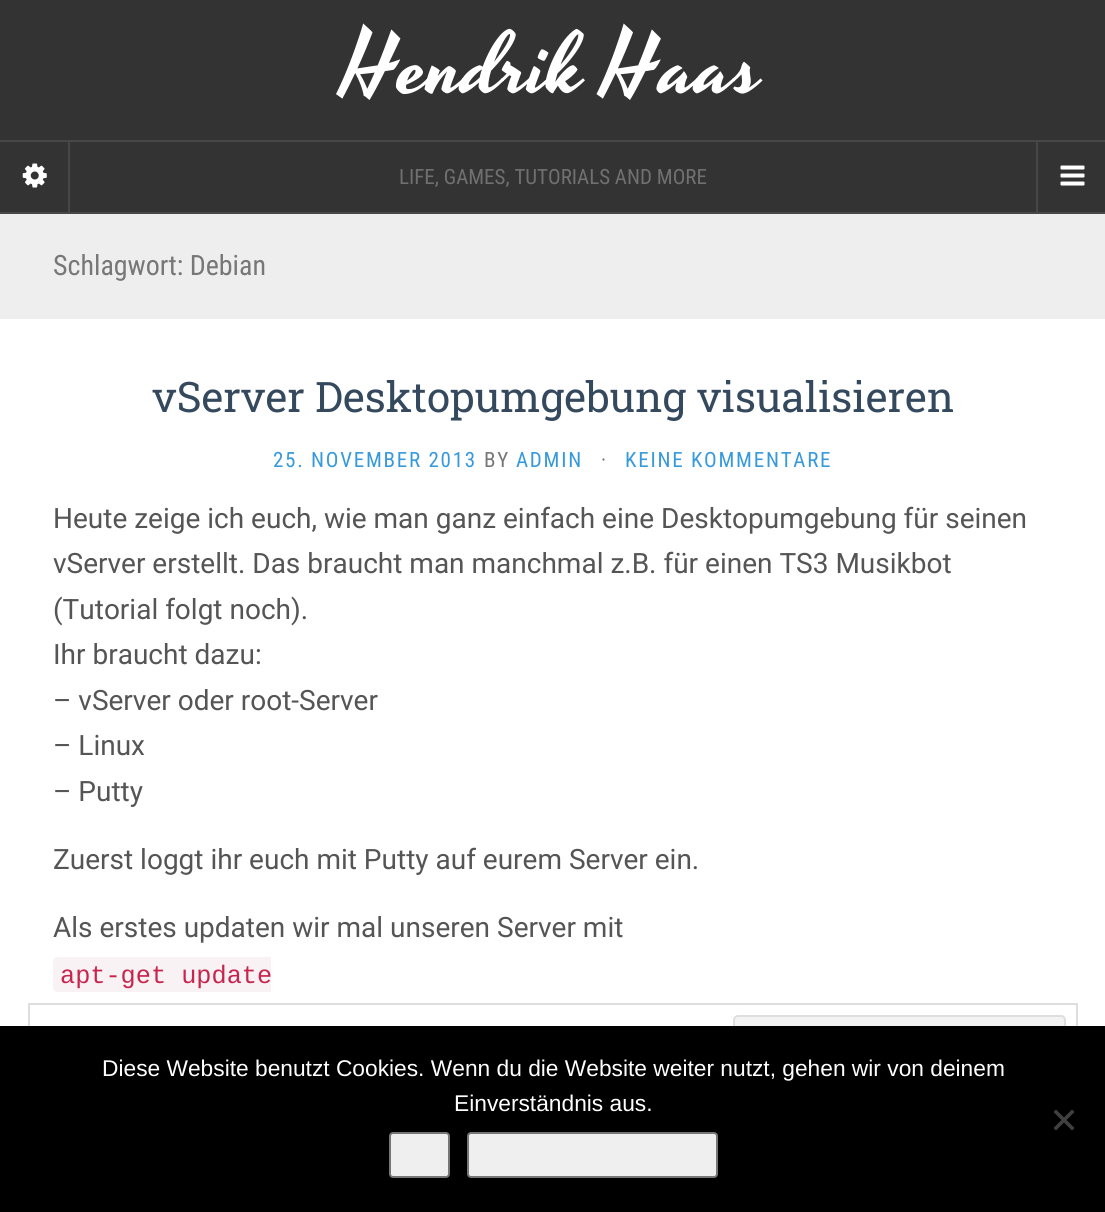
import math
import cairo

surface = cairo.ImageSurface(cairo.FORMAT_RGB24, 1105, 1212)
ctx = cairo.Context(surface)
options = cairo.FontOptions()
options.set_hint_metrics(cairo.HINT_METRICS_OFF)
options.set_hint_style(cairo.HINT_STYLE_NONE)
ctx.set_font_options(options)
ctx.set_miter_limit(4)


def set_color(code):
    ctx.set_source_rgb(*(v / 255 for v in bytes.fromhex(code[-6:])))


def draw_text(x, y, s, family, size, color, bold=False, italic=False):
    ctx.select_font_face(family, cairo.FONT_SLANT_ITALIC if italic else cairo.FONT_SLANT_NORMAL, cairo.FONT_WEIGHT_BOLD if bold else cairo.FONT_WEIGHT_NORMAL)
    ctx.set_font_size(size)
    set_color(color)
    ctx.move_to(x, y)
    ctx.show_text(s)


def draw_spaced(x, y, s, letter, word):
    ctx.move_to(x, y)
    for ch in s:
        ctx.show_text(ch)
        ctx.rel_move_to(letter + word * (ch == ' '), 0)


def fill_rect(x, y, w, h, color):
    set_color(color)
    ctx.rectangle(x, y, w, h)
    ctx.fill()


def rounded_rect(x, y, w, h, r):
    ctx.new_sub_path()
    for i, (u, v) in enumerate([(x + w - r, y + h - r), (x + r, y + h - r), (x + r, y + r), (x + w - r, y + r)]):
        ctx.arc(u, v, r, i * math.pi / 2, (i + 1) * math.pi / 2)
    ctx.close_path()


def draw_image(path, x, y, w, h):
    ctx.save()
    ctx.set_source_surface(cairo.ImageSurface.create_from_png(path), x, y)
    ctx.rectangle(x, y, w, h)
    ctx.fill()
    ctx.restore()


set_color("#333333")
ctx.paint()
fill_rect(68, 142, 2, 70, "#474747")
draw_image("assets/img1.png", 22, 163, 25, 25)
fill_rect(0, 212, 1105, 2, "#474747")
fill_rect(0, 140, 1105, 2, "#474747")
draw_text(344, 91, "Hendrik Haas", "Yesteryear", 87.5, "#ffffff")
draw_text(399, 184, "LIFE, GAMES, TUTORIALS AND MORE", "Roboto Condensed", 21, "#707070")
fill_rect(1036, 142, 2, 70, "#474747")
draw_image("assets/img2.png", 1060, 165, 25, 21)
fill_rect(0, 319, 1105, 707, "#ffffff")
fill_rect(0, 214, 1105, 105, "#eeeeee")
draw_text(53, 275, "Schlagwort: Debian", "Roboto Condensed", 28, "#777777")
draw_text(152, 412, "vServer Desktopumgebung visualisieren", "Roboto Slab", 42, "#34495e")
ctx.select_font_face("Roboto Condensed")
ctx.set_font_size(21)
set_color("#3699dc")
draw_spaced(273, 467, "25. NOVEMBER 2013", 1.75, 0)
set_color("#777777")
draw_spaced(484, 467, "BY", 1.75, 0)
set_color("#3699dc")
draw_spaced(516, 467, "ADMIN", 1.75, 0)
set_color("#777777")
draw_spaced(601, 467, "·", 1.75, 0)
set_color("#3699dc")
draw_spaced(625, 467, "KEINE KOMMENTARE", 1.75, 0)
draw_text(53, 528, "Heute zeige ich euch, wie man ganz einfach eine Desktopumgebung für seinen", "Roboto", 28, "#555555")
draw_text(53, 573, "vServer erstellt. Das braucht man manchmal z.B. für einen TS3 Musikbot", "Roboto", 28, "#555555")
draw_text(53, 619, "(Tutorial folgt noch).", "Roboto", 28, "#555555")
draw_text(53, 664, "Ihr braucht dazu:", "Roboto", 28, "#555555")
draw_text(53, 710, "– vServer oder root-Server", "Roboto", 28, "#555555")
draw_text(53, 755, "– Linux", "Roboto", 28, "#555555")
draw_text(53, 801, "– Putty", "Roboto", 28, "#555555")
draw_text(53, 869, "Zuerst loggt ihr euch mit Putty auf eurem Server ein.", "Roboto", 28, "#555555")
draw_text(53, 937, "Als erstes updaten wir mal unseren Server mit", "Roboto", 28, "#555555")
set_color("#f9f2f4")
ctx.new_path()
ctx.move_to(58, 957)
ctx.line_to(271, 957)
ctx.line_to(271, 992)
ctx.line_to(58, 992)
ctx.curve_to(55, 992, 53, 990, 53, 987)
ctx.line_to(53, 962)
ctx.curve_to(53, 959, 55, 957, 58, 957)
ctx.close_path()
ctx.fill()
draw_text(60, 983, "apt-get update", "Liberation Mono", 25.25, "#c7254e")
ctx.rectangle(29, 1004, 1048, 180)
set_color("#dedede")
ctx.stroke()
set_color("#f3f3f3")
rounded_rect(734, 1016, 331, 66, 4)
ctx.fill_preserve()
set_color("#dedede")
ctx.stroke()
fill_rect(0, 1026, 1105, 186, "#000000")
draw_text(102, 1076, "Diese Website benutzt Cookies. Wenn du die Website weiter nutzt, gehen wir von deinem", "Liberation Sans", 22.75, "#ffffff")
draw_text(454, 1111, "Einverständnis aus.", "Liberation Sans", 22.75, "#ffffff")
set_color("#404040")
ctx.new_path()
ctx.move_to(1072, 1109.5)
ctx.line_to(1074.5, 1112)
ctx.line_to(1056, 1130.5)
ctx.line_to(1053.5, 1128)
ctx.close_path()
ctx.fill()
ctx.new_path()
ctx.move_to(1053.5, 1112)
ctx.line_to(1056, 1109.5)
ctx.line_to(1074.5, 1128)
ctx.line_to(1072, 1130.5)
ctx.close_path()
ctx.fill()
set_color("#efefef")
rounded_rect(390, 1133, 59, 44, 3)
ctx.fill_preserve()
set_color("#767676")
ctx.stroke()
set_color("#efefef")
rounded_rect(468, 1133, 249, 44, 3)
ctx.fill_preserve()
set_color("#767676")
ctx.stroke()
surface.write_to_png("output.png")
